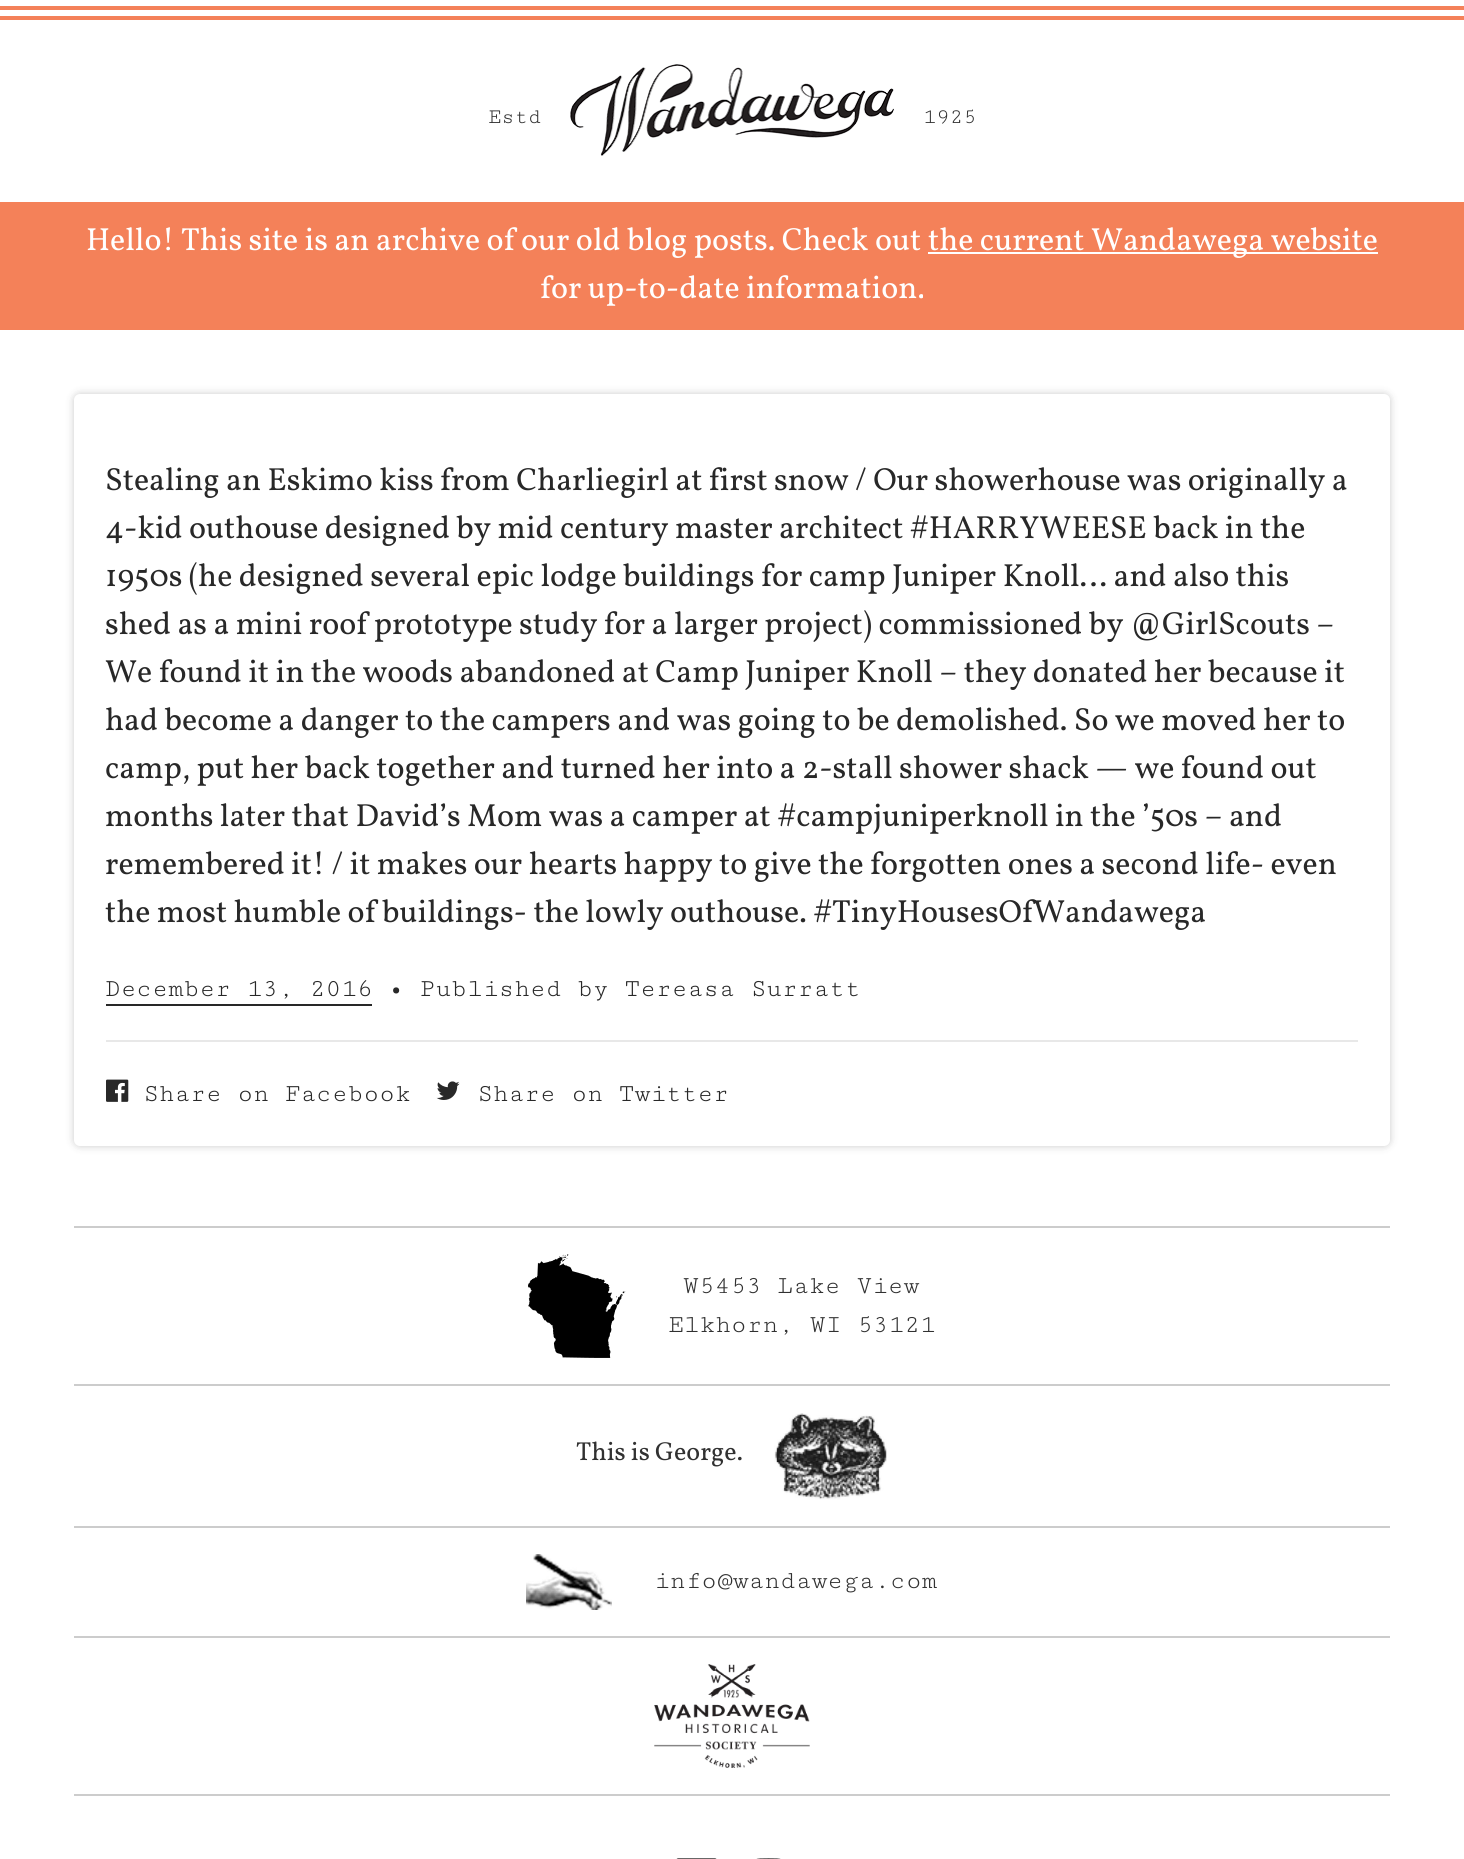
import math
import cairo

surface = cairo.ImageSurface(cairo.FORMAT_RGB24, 1464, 1859)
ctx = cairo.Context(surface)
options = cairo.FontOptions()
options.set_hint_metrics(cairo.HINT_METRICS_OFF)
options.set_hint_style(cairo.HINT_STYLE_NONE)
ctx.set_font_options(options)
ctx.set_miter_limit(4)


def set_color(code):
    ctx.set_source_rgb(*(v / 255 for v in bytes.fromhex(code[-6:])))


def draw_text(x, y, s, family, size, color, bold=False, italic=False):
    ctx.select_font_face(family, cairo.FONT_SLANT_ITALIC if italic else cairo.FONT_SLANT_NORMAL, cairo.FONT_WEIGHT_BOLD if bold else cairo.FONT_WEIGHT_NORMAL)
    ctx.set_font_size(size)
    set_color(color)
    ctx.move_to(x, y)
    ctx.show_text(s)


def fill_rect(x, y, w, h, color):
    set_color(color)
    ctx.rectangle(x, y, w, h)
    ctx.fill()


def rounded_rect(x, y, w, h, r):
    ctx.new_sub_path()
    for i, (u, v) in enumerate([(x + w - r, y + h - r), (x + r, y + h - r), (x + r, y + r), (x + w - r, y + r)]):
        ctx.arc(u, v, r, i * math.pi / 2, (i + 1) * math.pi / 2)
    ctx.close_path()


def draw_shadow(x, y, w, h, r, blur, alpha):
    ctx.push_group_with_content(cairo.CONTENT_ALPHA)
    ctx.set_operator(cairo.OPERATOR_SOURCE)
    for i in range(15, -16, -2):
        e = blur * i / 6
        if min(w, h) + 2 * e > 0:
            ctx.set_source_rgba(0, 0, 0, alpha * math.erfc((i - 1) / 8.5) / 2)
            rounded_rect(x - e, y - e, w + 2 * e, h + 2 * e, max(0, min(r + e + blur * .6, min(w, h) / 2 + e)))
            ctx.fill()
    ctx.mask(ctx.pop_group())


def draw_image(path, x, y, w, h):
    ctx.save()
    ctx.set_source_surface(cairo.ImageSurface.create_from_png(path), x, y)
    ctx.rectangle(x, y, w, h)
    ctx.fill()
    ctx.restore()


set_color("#ffffff")
ctx.paint()
fill_rect(0, 6, 1464, 4, "#f48159")
fill_rect(0, 16, 1464, 4, "#f48159")
draw_text(488, 123, "Estd", "Cutive Mono", 22, "#313131")
draw_image("assets/img1.png", 570, 64, 324, 92)
draw_text(923, 123, "1925", "Cutive Mono", 22, "#313131")
fill_rect(0, 202, 1464, 128, "#f48159")
draw_text(86, 250, "Hello! This site is an archive of our old blog posts. Check out", "Vollkorn", 32, "#ffffff")
fill_rect(928, 252, 450, 2, "#ffffff")
draw_text(928, 250, "the current Wandawega website", "Vollkorn", 32, "#ffffff")
draw_text(540, 298, "for up-to-date information.", "Vollkorn", 32, "#ffffff")
set_color("#282828")
draw_shadow(74, 394, 1316, 752, 6, 4, 0.25)
set_color("#ffffff")
rounded_rect(74, 394, 1316, 752, 6)
ctx.fill()
draw_text(105, 490, "Stealing an Eskimo kiss from Charliegirl at first snow / Our showerhouse was originally a", "Vollkorn", 32, "#282828")
draw_text(105, 538, "4-kid outhouse designed by mid century master architect #HARRYWEESE back in the", "Vollkorn", 32, "#282828")
draw_text(105, 586, "1950s (he designed several epic lodge buildings for camp Juniper Knoll… and also this", "Vollkorn", 32, "#282828")
draw_text(105, 634, "shed as a mini roof prototype study for a larger project) commissioned by @GirlScouts –", "Vollkorn", 32, "#282828")
draw_text(105, 682, "We found it in the woods abandoned at Camp Juniper Knoll – they donated her because it", "Vollkorn", 32, "#282828")
draw_text(105, 730, "had become a danger to the campers and was going to be demolished. So we moved her to", "Vollkorn", 32, "#282828")
draw_text(105, 778, "camp, put her back together and turned her into a 2-stall shower shack — we found out", "Vollkorn", 32, "#282828")
draw_text(105, 826, "months later that David’s Mom was a camper at #campjuniperknoll in the ’50s – and", "Vollkorn", 32, "#282828")
draw_text(105, 874, "remembered it! / it makes our hearts happy to give the forgotten ones a second life- even", "Vollkorn", 32, "#282828")
draw_text(105, 922, "the most humble of buildings- the lowly outhouse. #TinyHousesOfWandawega", "Vollkorn", 32, "#282828")
draw_text(105, 996, "December 13, 2016 • Published by Tereasa Surratt", "Cutive Mono", 26, "#282828")
fill_rect(106, 1004, 266, 2, "#282828")
fill_rect(106, 1040, 1252, 2, "#e8e8e8")
draw_image("assets/img2.png", 106, 1079, 23, 23)
draw_text(143, 1101, "Share on Facebook", "Cutive Mono", 26, "#282828")
draw_image("assets/img3.png", 436, 1081, 24, 19)
draw_text(477, 1101, "Share on Twitter", "Cutive Mono", 26, "#282828")
fill_rect(74, 1226, 1316, 2, "#cccccc")
fill_rect(74, 1794, 1316, 2, "#cccccc")
fill_rect(74, 1384, 1316, 2, "#cccccc")
draw_image("assets/img4.png", 528, 1254, 98, 104)
draw_text(683, 1293, "W5453 Lake View", "Cutive Mono", 26, "#313131")
draw_text(668, 1332, "Elkhorn, WI 53121", "Cutive Mono", 26, "#313131")
fill_rect(74, 1526, 1316, 2, "#cccccc")
draw_text(576, 1460, "This is George.", "Vollkorn", 26, "#313131")
draw_image("assets/img5.png", 774, 1413, 113, 87)
fill_rect(74, 1636, 1316, 2, "#cccccc")
draw_image("assets/img6.png", 526, 1554, 86, 56)
draw_text(654, 1588, "info@wandawega.com", "Cutive Mono", 26, "#313131")
draw_image("assets/img7.png", 654, 1664, 156, 104)
draw_image("assets/img8.png", 676, 1858, 41, 1)
draw_image("assets/img9.png", 756, 1858, 25, 1)
surface.write_to_png("output.png")
